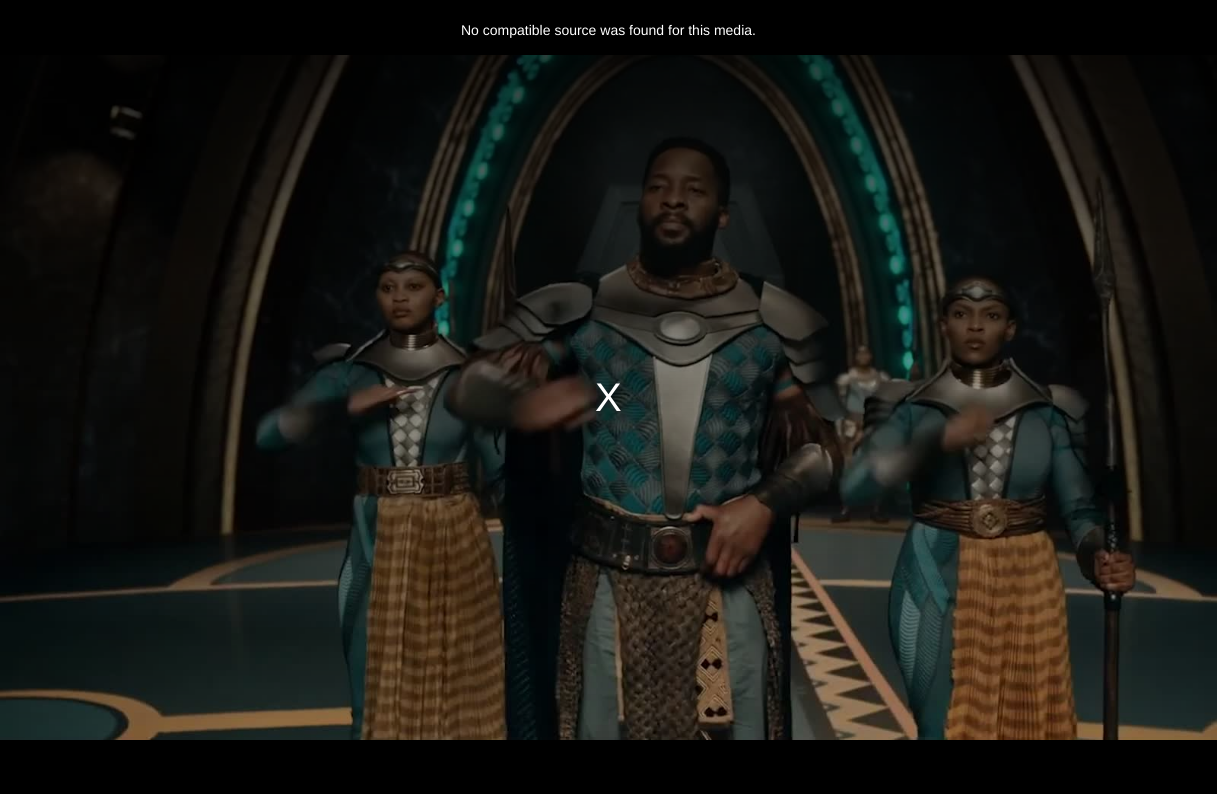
import math
import cairo

surface = cairo.ImageSurface(cairo.FORMAT_RGB24, 1217, 794)
ctx = cairo.Context(surface)
options = cairo.FontOptions()
options.set_hint_metrics(cairo.HINT_METRICS_OFF)
options.set_hint_style(cairo.HINT_STYLE_NONE)
ctx.set_font_options(options)
ctx.set_miter_limit(4)


def set_color(code):
    ctx.set_source_rgb(*(v / 255 for v in bytes.fromhex(code[-6:])))


def draw_text(x, y, s, family, size, color, bold=False, italic=False):
    ctx.select_font_face(family, cairo.FONT_SLANT_ITALIC if italic else cairo.FONT_SLANT_NORMAL, cairo.FONT_WEIGHT_BOLD if bold else cairo.FONT_WEIGHT_NORMAL)
    ctx.set_font_size(size)
    set_color(color)
    ctx.move_to(x, y)
    ctx.show_text(s)


def draw_image(path, x, y, w, h):
    ctx.save()
    ctx.set_source_surface(cairo.ImageSurface.create_from_png(path), x, y)
    ctx.rectangle(x, y, w, h)
    ctx.fill()
    ctx.restore()


set_color("#000000")
ctx.paint()
draw_image("assets/img1.png", 0, 55, 1217, 685)
gradient = cairo.LinearGradient(609, 0, 609, 794)
gradient.add_color_stop_rgba(0, 0, 0, 0, 0.8)
gradient.add_color_stop_rgba(1, 0, 0, 0, 0)
ctx.set_source(gradient)
ctx.rectangle(0, 55, 1217, 685)
ctx.fill()
draw_text(461, 35, "No compatible source was found for this media.", "Liberation Sans", 14, "#ffffff")
draw_text(595, 411, "X", "Liberation Sans", 40, "#ffffff")
surface.write_to_png("output.png")
